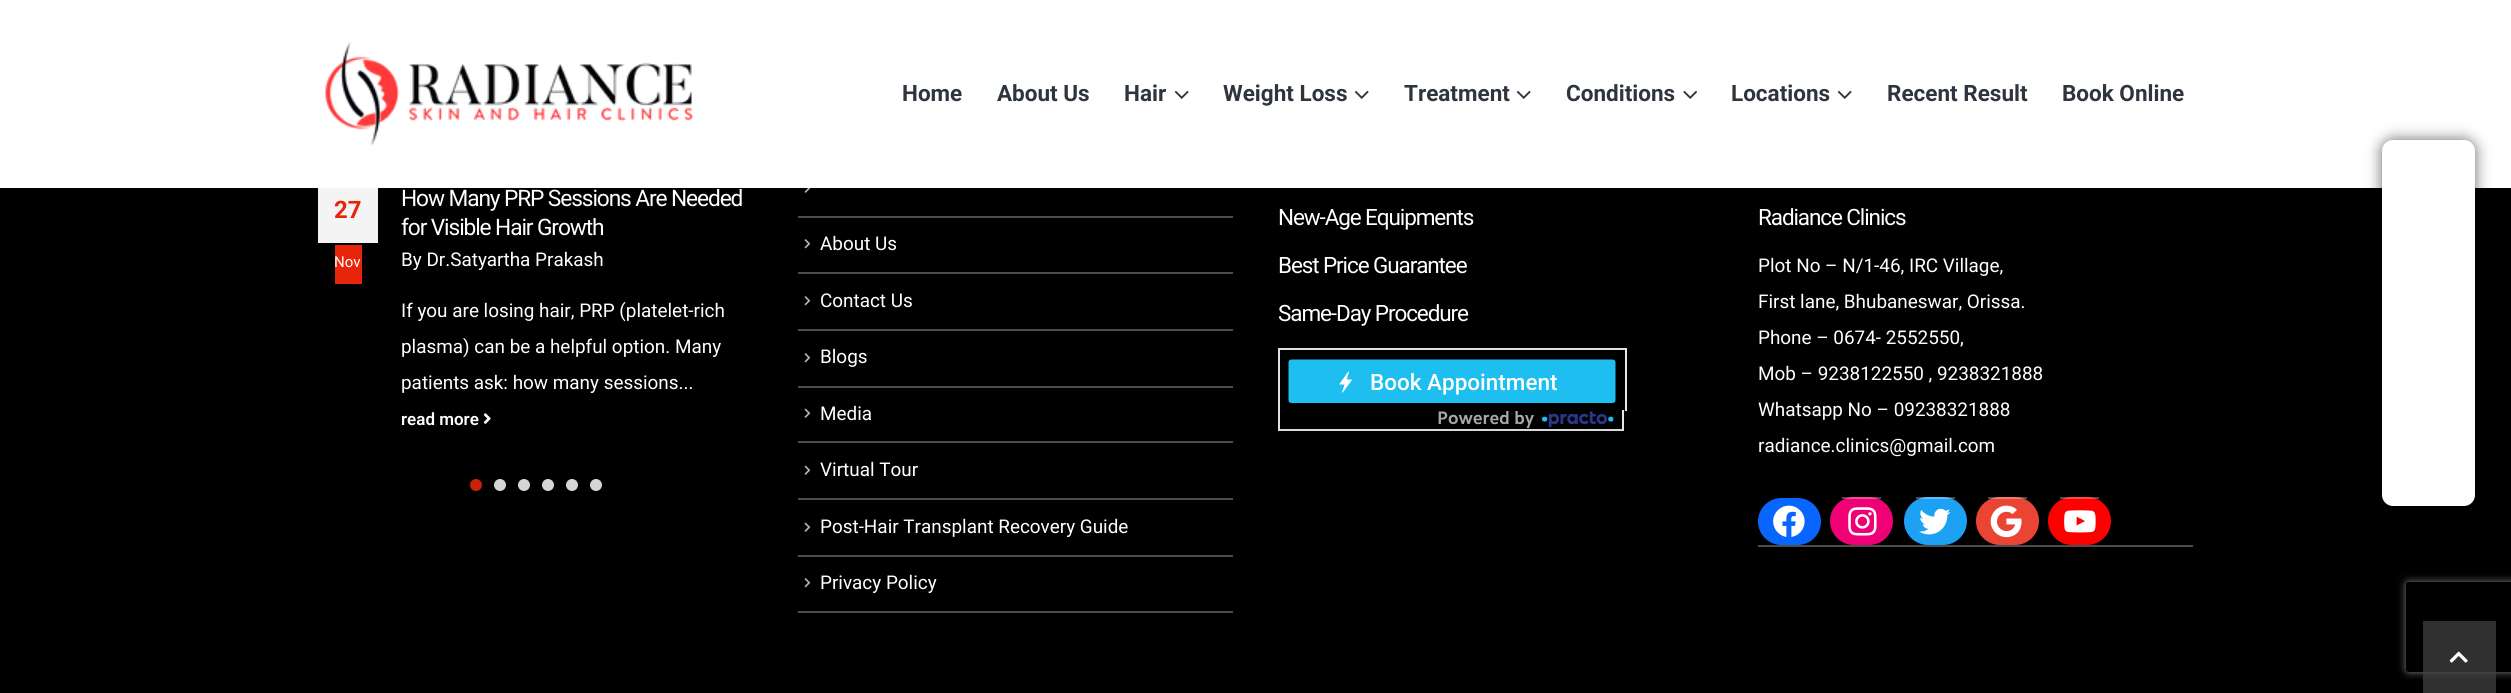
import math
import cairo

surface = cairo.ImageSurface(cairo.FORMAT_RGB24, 2511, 693)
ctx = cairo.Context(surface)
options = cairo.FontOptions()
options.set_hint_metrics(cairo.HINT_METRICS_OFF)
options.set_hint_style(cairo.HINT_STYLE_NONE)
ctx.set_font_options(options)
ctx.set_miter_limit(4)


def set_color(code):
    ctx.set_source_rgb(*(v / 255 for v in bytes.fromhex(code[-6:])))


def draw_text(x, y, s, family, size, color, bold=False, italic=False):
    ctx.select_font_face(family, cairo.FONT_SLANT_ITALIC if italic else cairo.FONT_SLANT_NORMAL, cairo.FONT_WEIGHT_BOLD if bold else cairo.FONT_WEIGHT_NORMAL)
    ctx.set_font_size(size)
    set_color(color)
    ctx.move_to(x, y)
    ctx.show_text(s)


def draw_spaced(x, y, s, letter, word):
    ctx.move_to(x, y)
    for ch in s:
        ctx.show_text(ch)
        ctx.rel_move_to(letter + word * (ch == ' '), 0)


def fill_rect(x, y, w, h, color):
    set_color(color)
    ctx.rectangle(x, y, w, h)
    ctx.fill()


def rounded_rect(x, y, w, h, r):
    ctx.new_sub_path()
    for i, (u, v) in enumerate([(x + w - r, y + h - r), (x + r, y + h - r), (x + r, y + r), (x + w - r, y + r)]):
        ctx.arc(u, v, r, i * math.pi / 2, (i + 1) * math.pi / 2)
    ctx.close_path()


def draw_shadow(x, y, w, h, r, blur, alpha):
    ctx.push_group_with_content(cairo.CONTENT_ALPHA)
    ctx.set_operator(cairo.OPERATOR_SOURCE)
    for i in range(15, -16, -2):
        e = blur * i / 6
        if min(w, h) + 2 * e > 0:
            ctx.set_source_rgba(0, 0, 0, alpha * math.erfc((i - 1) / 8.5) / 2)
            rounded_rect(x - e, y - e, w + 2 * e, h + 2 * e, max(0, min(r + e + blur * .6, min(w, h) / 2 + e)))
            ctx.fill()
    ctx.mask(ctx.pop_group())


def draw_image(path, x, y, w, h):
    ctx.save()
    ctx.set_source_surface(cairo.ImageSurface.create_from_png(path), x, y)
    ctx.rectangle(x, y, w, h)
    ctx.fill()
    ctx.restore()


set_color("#000000")
ctx.paint()
fill_rect(0, 0, 2511, 188, "#ffffff")
draw_image("assets/img1.png", 325, 42, 369, 104)
draw_text(902, 101, "Home", "Roboto", 22.5, "#2e353e", bold=True)
draw_text(997, 101, "About Us", "Roboto", 22.5, "#2e353e", bold=True)
draw_text(1124, 101, "Hair", "Roboto", 22.5, "#2e353e", bold=True)
draw_image("assets/img2.png", 1174, 90, 15, 9)
draw_text(1223, 101, "Weight Loss", "Roboto", 22.5, "#2e353e", bold=True)
draw_image("assets/img2.png", 1354, 90, 15, 9)
draw_text(1404, 101, "Treatment", "Roboto", 22.5, "#2e353e", bold=True)
draw_image("assets/img2.png", 1516, 90, 15, 9)
draw_text(1566, 101, "Conditions", "Roboto", 22.5, "#2e353e", bold=True)
draw_image("assets/img3.png", 1683, 90, 14, 9)
draw_text(1731, 101, "Locations", "Roboto", 22.5, "#2e353e", bold=True)
draw_image("assets/img2.png", 1837, 90, 15, 9)
draw_text(1887, 101, "Recent Result", "Roboto", 22.5, "#2e353e", bold=True)
draw_text(2062, 101, "Book Online", "Roboto", 22.5, "#2e353e", bold=True)
fill_rect(318, 188, 60, 55, "#f4f4f4")
draw_text(334, 218, "27", "Roboto", 24, "#e6250b", bold=True)
fill_rect(335, 245, 27, 39, "#e6250b")
draw_text(334, 267, "Nov", "Roboto", 15, "#ffffff")
ctx.set_font_size(22.7)
draw_spaced(401, 206, "How Many PRP Sessions Are Needed", -1.1, 0)
draw_spaced(401, 235, "for Visible Hair Growth", -1.1, 0)
draw_text(401, 266, "By Dr.Satyartha Prakash", "Roboto", 18.9, "#ffffff")
draw_text(401, 317, "If you are losing hair, PRP (platelet-rich", "Roboto", 18.9, "#ffffff")
draw_text(401, 353, "plasma) can be a helpful option. Many", "Roboto", 18.9, "#ffffff")
draw_text(401, 389, "patients ask: how many sessions...", "Roboto", 18.9, "#ffffff")
draw_text(401, 425, "read more", "Roboto SemiBold", 17, "#ffffff")
draw_image("assets/img4.png", 483, 413, 8, 11)
set_color("#c9210a")
ctx.arc(476, 485, 6, 0, 2 * math.pi)
ctx.fill()
set_color("#d6d6d6")
ctx.arc(500, 485, 6, 0, 2 * math.pi)
ctx.fill()
ctx.arc(524, 485, 6, 0, 2 * math.pi)
ctx.fill()
ctx.arc(548, 485, 6, 0, 2 * math.pi)
ctx.fill()
ctx.arc(572, 485, 6, 0, 2 * math.pi)
ctx.fill()
ctx.arc(596, 485, 6, 0, 2 * math.pi)
ctx.fill()
fill_rect(798, 611, 435, 2, "#4d4d4d")
draw_image("assets/img5.png", 804, 188, 7, 5)
fill_rect(798, 216, 435, 2, "#4d4d4d")
draw_image("assets/img6.png", 804, 239, 7, 10)
draw_text(820, 250, "About Us", "Roboto", 18.9, "#ffffff")
fill_rect(798, 272, 435, 2, "#4d4d4d")
draw_image("assets/img6.png", 804, 296, 7, 10)
draw_text(820, 307, "Contact Us", "Roboto", 18.9, "#ffffff")
fill_rect(798, 329, 435, 2, "#4d4d4d")
draw_image("assets/img6.png", 804, 353, 7, 10)
draw_text(820, 363, "Blogs", "Roboto", 18.9, "#ffffff")
fill_rect(798, 386, 435, 2, "#4d4d4d")
draw_image("assets/img7.png", 804, 408, 7, 10)
draw_text(820, 420, "Media", "Roboto", 18.9, "#ffffff")
fill_rect(798, 441, 435, 2, "#4d4d4d")
draw_image("assets/img7.png", 804, 465, 7, 10)
draw_text(820, 476, "Virtual Tour", "Roboto", 18.9, "#ffffff")
fill_rect(798, 498, 435, 2, "#4d4d4d")
draw_image("assets/img7.png", 804, 522, 7, 10)
draw_text(820, 533, "Post-Hair Transplant Recovery Guide", "Roboto", 18.9, "#ffffff")
fill_rect(798, 555, 435, 2, "#4d4d4d")
draw_image("assets/img6.png", 804, 578, 7, 10)
draw_text(820, 589, "Privacy Policy", "Roboto", 18.9, "#ffffff")
ctx.set_font_size(22.5)
draw_spaced(1278, 225, "New-Age Equipments", -1.1, 0)
draw_spaced(1278, 273, "Best Price Guarantee", -1.1, 0)
draw_spaced(1278, 321, "Same-Day Procedure", -1.1, 0)
draw_image("assets/img8.png", 1288, 359, 328, 44)
fill_rect(1278, 348, 348, 2, "#e0e0e0")
fill_rect(1625, 348, 2, 63, "#e6e6e6")
fill_rect(1622, 410, 2, 21, "#e6e6e6")
fill_rect(1278, 429, 345, 2, "#d9d9d9")
fill_rect(1278, 410, 2, 21, "#e0e0e0")
fill_rect(1278, 348, 2, 63, "#e0e0e0")
fill_rect(1372, 373, 181, 20, "#1ebef0")
draw_text(1370, 390, "Book Appointment", "Roboto Medium", 22.5, "#ffffff")
draw_image("assets/img9.png", 1438, 411, 176, 17)
ctx.select_font_face("Roboto")
draw_spaced(1758, 225, "Radiance Clinics", -1.1, 0)
draw_text(1758, 272, "Plot No – N/1-46, IRC Village,", "Roboto", 18.9, "#ffffff")
draw_text(1758, 308, "First lane, Bhubaneswar, Orissa.", "Roboto", 18.9, "#ffffff")
draw_text(1758, 344, "Phone – 0674- 2552550,", "Roboto", 18.9, "#ffffff")
draw_text(1758, 380, "Mob – 9238122550 , 9238321888", "Roboto", 18.9, "#ffffff")
draw_text(1758, 416, "Whatsapp No – 09238321888", "Roboto", 18.9, "#ffffff")
draw_text(1758, 452, "radiance.clinics@gmail.com", "Roboto", 18.9, "#ffffff")
fill_rect(1758, 545, 435, 2, "#4d4d4d")
set_color("#0866ff")
rounded_rect(1758, 498, 63, 47, 23.5)
ctx.fill()
draw_image("assets/img10.png", 1773, 505, 32, 32)
set_color("#f00075")
rounded_rect(1830, 497, 63, 48, 24)
ctx.fill()
ctx.set_source_rgba(1, 1, 1, 0.3)
ctx.rectangle(1842, 497, 39, 2)
ctx.fill()
draw_image("assets/img11.png", 1848, 507, 29, 29)
set_color("#1da1f2")
rounded_rect(1904, 497, 63, 48, 24)
ctx.fill()
ctx.set_source_rgba(1, 1, 1, 0.3)
ctx.rectangle(1916, 497, 39, 2)
ctx.fill()
draw_image("assets/img12.png", 1919, 508, 32, 27)
set_color("#ea4434")
rounded_rect(1976, 497, 63, 48, 24)
ctx.fill()
ctx.set_source_rgba(1, 1, 1, 0.3)
ctx.rectangle(1988, 497, 39, 2)
ctx.fill()
draw_image("assets/img13.png", 1990, 505, 32, 33)
set_color("#ff0000")
rounded_rect(2048, 497, 63, 48, 24)
ctx.fill()
ctx.set_source_rgba(1, 1, 1, 0.3)
ctx.rectangle(2060, 497, 39, 2)
ctx.fill()
draw_image("assets/img14.png", 2064, 510, 32, 23)
set_color("#000000")
draw_shadow(2382, 140, 93, 366, 11, 7.5, 0.6)
set_color("#ffffff")
rounded_rect(2382, 140, 93, 366, 11)
ctx.fill()
ctx.save()
ctx.set_fill_rule(cairo.FILL_RULE_EVEN_ODD)
ctx.new_path()
ctx.move_to(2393, 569)
ctx.line_to(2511, 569)
ctx.line_to(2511, 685)
ctx.line_to(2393, 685)
ctx.close_path()
ctx.move_to(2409, 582)
ctx.line_to(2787, 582)
ctx.curve_to(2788.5, 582, 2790, 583.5, 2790, 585)
ctx.line_to(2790, 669)
ctx.curve_to(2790, 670.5, 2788.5, 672, 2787, 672)
ctx.line_to(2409, 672)
ctx.curve_to(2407.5, 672, 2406, 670.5, 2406, 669)
ctx.line_to(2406, 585)
ctx.curve_to(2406, 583.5, 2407.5, 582, 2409, 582)
ctx.close_path()
ctx.clip()
set_color("#808080")
draw_shadow(2406, 582, 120, 90, 3, 4, 1)
ctx.restore()
ctx.set_source_rgba(0.251, 0.251, 0.251, 0.75)
ctx.rectangle(2423, 621, 73, 72)
ctx.fill()
draw_image("assets/img15.png", 2449, 651, 19, 12)
surface.write_to_png("output.png")
